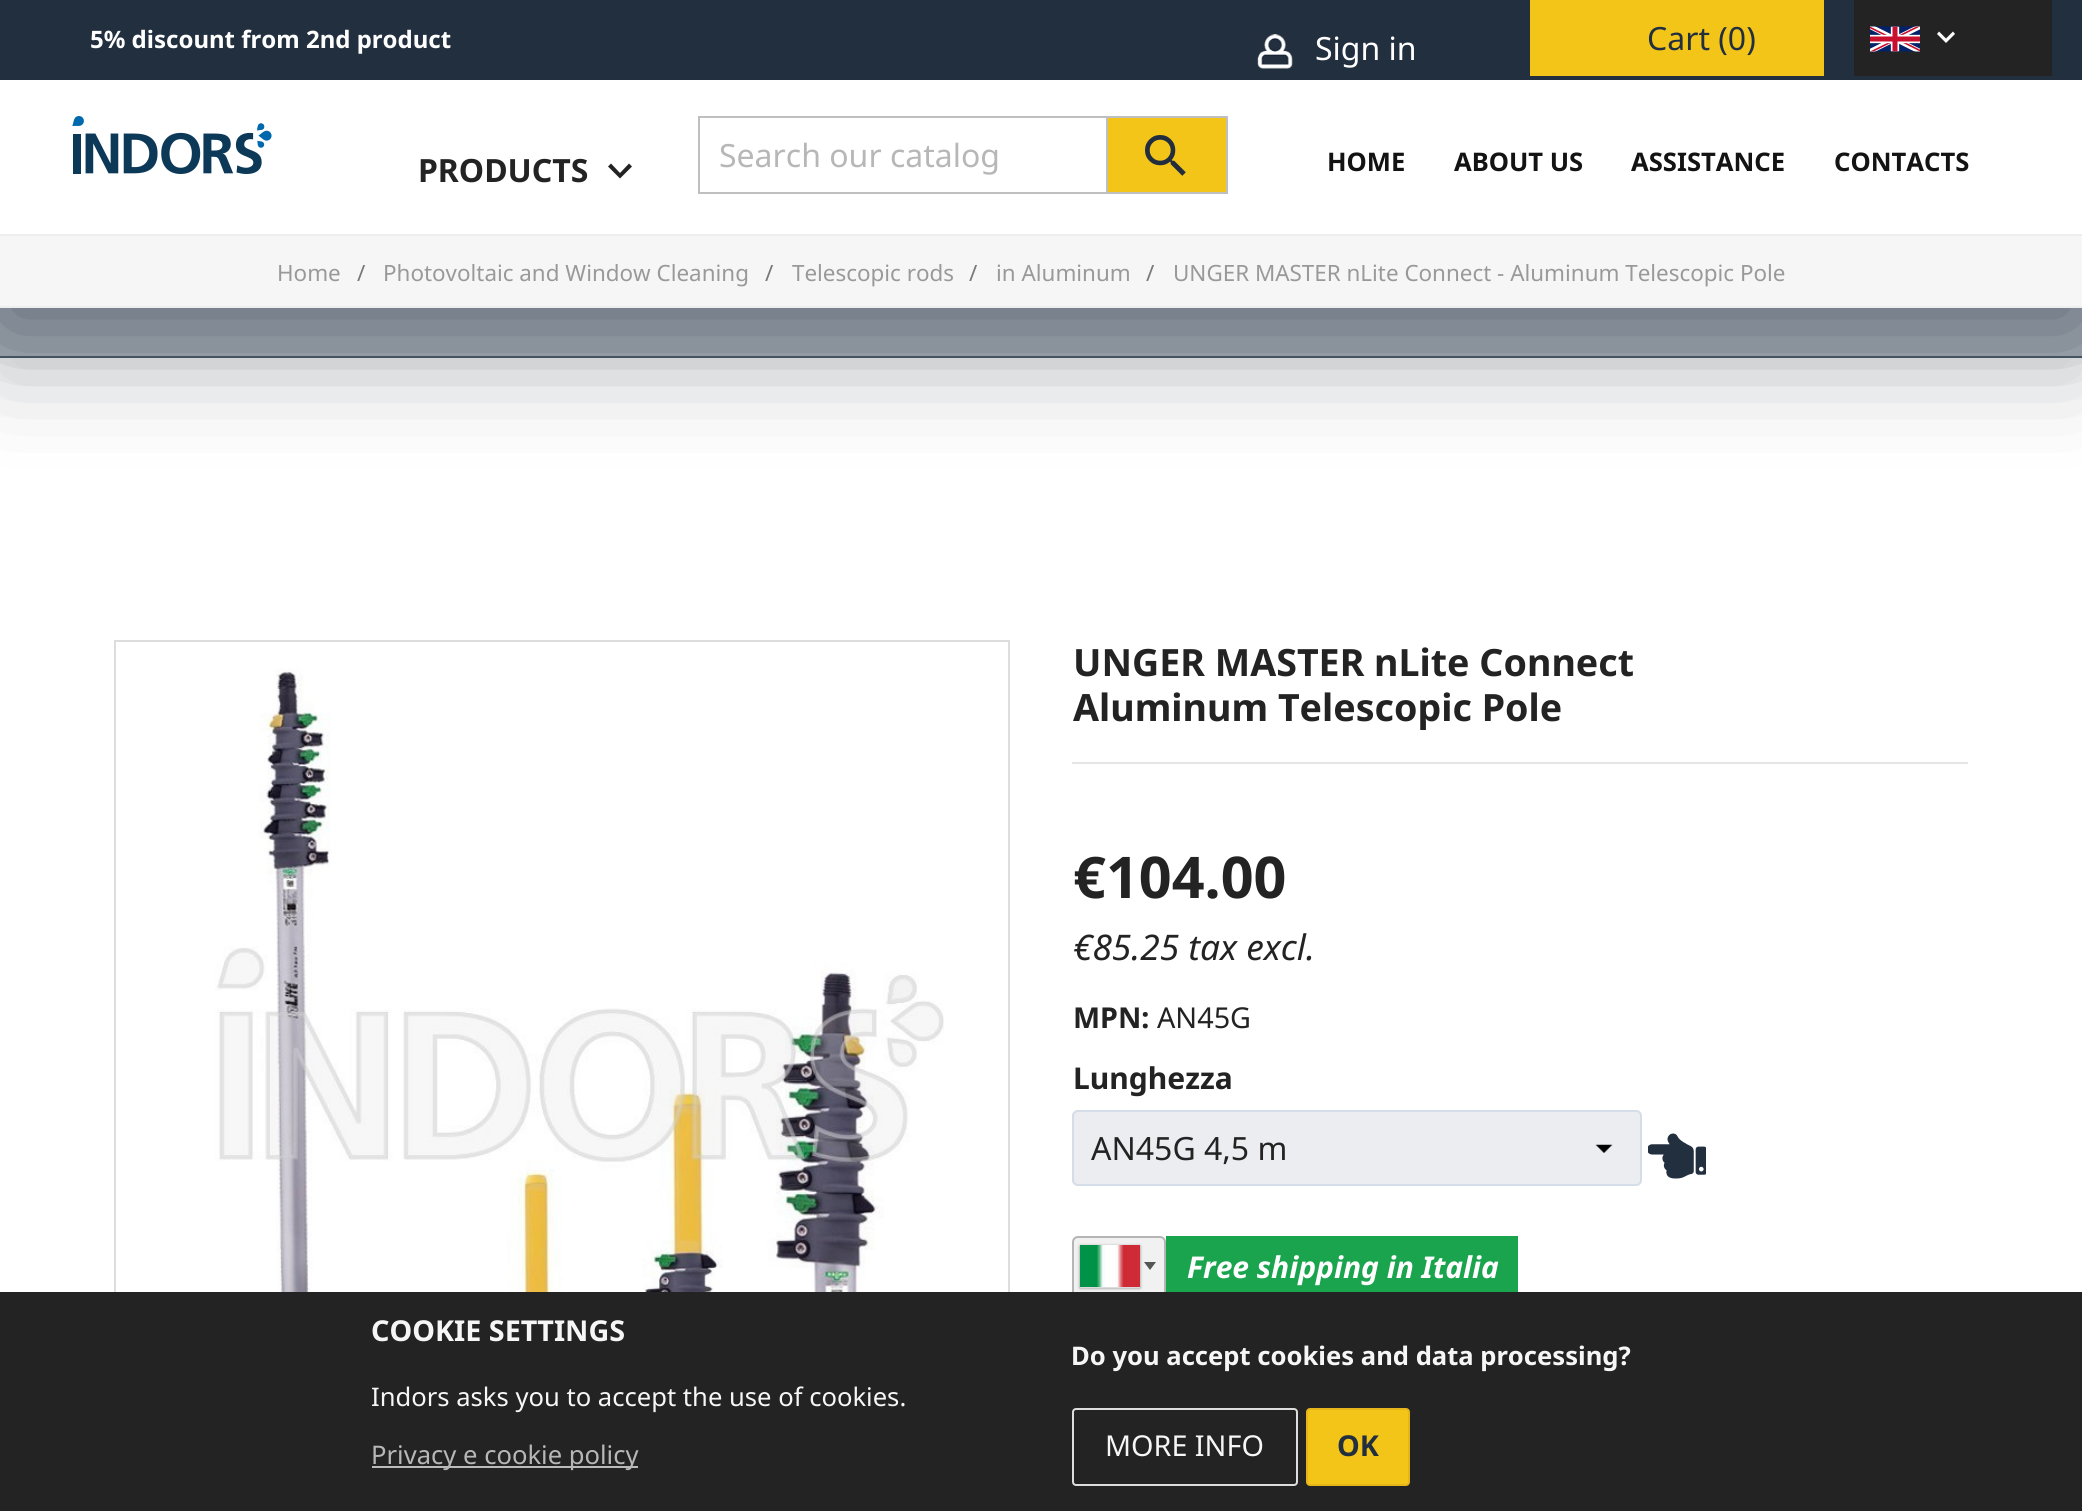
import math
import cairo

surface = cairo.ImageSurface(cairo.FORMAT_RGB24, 2082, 1511)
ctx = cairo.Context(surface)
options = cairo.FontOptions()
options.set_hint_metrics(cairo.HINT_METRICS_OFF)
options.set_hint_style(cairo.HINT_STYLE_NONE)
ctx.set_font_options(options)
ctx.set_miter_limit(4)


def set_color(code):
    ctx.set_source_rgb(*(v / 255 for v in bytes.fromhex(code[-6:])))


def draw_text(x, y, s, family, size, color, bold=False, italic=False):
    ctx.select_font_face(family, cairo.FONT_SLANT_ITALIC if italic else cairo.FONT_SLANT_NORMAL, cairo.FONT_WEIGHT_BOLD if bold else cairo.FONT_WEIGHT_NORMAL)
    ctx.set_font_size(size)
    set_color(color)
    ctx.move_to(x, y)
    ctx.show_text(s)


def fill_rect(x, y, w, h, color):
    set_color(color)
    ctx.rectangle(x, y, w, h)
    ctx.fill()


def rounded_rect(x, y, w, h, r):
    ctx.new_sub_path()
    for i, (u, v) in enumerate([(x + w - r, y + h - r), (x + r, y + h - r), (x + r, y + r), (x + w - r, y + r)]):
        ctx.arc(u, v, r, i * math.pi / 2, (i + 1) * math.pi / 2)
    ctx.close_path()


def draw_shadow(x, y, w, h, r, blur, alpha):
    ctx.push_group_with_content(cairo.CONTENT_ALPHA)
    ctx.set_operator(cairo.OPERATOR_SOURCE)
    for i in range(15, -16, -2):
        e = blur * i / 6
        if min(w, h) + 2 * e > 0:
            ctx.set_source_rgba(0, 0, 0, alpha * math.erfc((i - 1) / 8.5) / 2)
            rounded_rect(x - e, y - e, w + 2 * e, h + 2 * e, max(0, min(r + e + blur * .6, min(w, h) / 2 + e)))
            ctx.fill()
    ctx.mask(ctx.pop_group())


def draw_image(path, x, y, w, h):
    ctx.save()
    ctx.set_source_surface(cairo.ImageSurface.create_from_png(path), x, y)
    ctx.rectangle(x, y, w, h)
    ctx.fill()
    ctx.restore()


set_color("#ffffff")
ctx.paint()
set_color("#000000")
draw_shadow(0, -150, 2082, 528, 0, 50, 0.13)
fill_rect(0, 308, 2082, 48, "#a2aab2")
fill_rect(0, 356, 2082, 2, "#495866")
set_color("#222e3e")
draw_shadow(0, 20, 2082, 308, 0, 50, 0.5)
fill_rect(0, 80, 2082, 154, "#ffffff")
fill_rect(0, 0, 2082, 80, "#222f3e")
draw_text(90, 48, "5% discount from 2nd product", "Noto Sans", 24, "#ffffff", bold=True)
draw_image("assets/img1.png", 1257, 34, 36, 35)
draw_text(1315, 60, "Sign in", "Noto Sans", 32, "#ffffff")
fill_rect(1530, 0, 294, 76, "#f3c519")
draw_text(1647, 50, "Cart (0)", "Noto Sans", 32, "#222f3e")
fill_rect(1854, 0, 198, 76, "#232323")
draw_image("assets/img2.png", 1870, 26, 50, 26)
set_color("#ffffff")
ctx.new_path()
ctx.move_to(1939, 31.5)
ctx.line_to(1946, 38.5)
ctx.line_to(1953, 31.5)
ctx.line_to(1955, 34)
ctx.line_to(1946, 43)
ctx.line_to(1937, 34)
ctx.close_path()
ctx.fill()
draw_image("assets/img3.png", 72, 116, 200, 58)
draw_text(418, 182, "PRODUCTS", "Noto Sans", 32, "#232323", bold=True)
ctx.new_path()
ctx.move_to(611, 163.5)
ctx.line_to(620, 173)
ctx.line_to(629, 163.5)
ctx.line_to(632, 166.5)
ctx.line_to(620, 178.5)
ctx.line_to(608, 166.5)
ctx.close_path()
ctx.fill()
ctx.rectangle(699, 117, 528, 76)
set_color("#bfbfbf")
ctx.stroke()
draw_text(719, 167, "Search our catalog", "Noto Sans", 32, "#b7b7b7")
fill_rect(1108, 118, 118, 74, "#f3c519")
fill_rect(1106, 118, 2, 74, "#bfbfbf")
draw_image("assets/img4.png", 1145, 135, 41, 41)
draw_text(1327, 171, "HOME", "Noto Sans", 25.6, "#131313", bold=True)
draw_text(1454, 171, "ABOUT US", "Noto Sans", 25.6, "#131313", bold=True)
draw_text(1631, 171, "ASSISTANCE", "Noto Sans", 25.6, "#131313", bold=True)
draw_text(1834, 171, "CONTACTS", "Noto Sans", 25.6, "#131313", bold=True)
fill_rect(0, 236, 2082, 70, "#f6f6f6")
fill_rect(0, 234, 2082, 2, "#eeeeee")
fill_rect(0, 306, 2082, 2, "#eeeeee")
draw_text(277, 281, "Home", "Noto Sans", 22.4, "#999999")
draw_text(357, 281, "/", "Noto Sans", 22.4, "#7a7a7a")
draw_text(383, 281, "Photovoltaic and Window Cleaning", "Noto Sans", 22.4, "#999999")
draw_text(765, 281, "/", "Noto Sans", 22.4, "#7a7a7a")
draw_text(792, 281, "Telescopic rods", "Noto Sans", 22.4, "#999999")
draw_text(969, 281, "/", "Noto Sans", 22.4, "#7a7a7a")
draw_text(996, 281, "in Aluminum", "Noto Sans", 22.4, "#999999")
draw_text(1146, 281, "/", "Noto Sans", 22.4, "#7a7a7a")
draw_text(1173, 281, "UNGER MASTER nLite Connect - Aluminum Telescopic Pole", "Noto Sans", 22.4, "#999999")
ctx.rectangle(115, 641, 894, 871)
set_color("#dddddd")
ctx.stroke()
draw_image("assets/img5.png", 215, 668, 729, 624)
draw_text(1073, 676, "UNGER MASTER nLite Connect", "Noto Sans", 37.6, "#232323", bold=True)
draw_text(1073, 721, "Aluminum Telescopic Pole", "Noto Sans", 37.6, "#232323", bold=True)
fill_rect(1072, 762, 896, 2, "#e6e6e6")
draw_text(1073, 898, "€104.00", "Noto Sans", 57.5, "#232323", bold=True)
draw_text(1073, 960, "€85.25 tax excl.", "Noto Sans", 35.25, "#232323", italic=True)
draw_text(1073, 1028, "MPN:", "Noto Sans", 28.75, "#232323", bold=True)
draw_text(1157, 1028, "AN45G", "Noto Sans", 28.75, "#232323")
draw_text(1073, 1089, "Lunghezza", "Noto Sans", 30, "#232323", bold=True)
set_color("#ebedf1")
rounded_rect(1072, 1110, 570, 76, 6)
ctx.fill()
draw_image("assets/img6.png", 1595, 1144, 18, 9)
rounded_rect(1073, 1111, 568, 74, 5)
set_color("#d5dde8")
ctx.stroke()
draw_text(1091, 1160, "AN45G 4,5 m", "Noto Sans", 32, "#232323")
draw_image("assets/img7.png", 1648, 1133, 58, 46)
set_color("#f1f1f1")
rounded_rect(1072, 1236, 94, 62, 6)
ctx.fill()
rounded_rect(1073, 1237, 92, 60, 5)
ctx.set_source_rgba(0, 0, 0, 0.25)
ctx.stroke()
set_color("#888888")
draw_shadow(1080, 1246, 60, 42, 0, 1.5, 1)
fill_rect(1080, 1287, 60, 1, "#dbdbdb")
draw_image("assets/img8.png", 1080, 1245, 60, 42)
set_color("#555555")
ctx.new_path()
ctx.move_to(1144, 1262)
ctx.line_to(1156, 1262)
ctx.line_to(1150, 1270)
ctx.close_path()
ctx.fill()
fill_rect(1166, 1236, 352, 56, "#1aa44d")
draw_text(1187, 1278, "Free shipping in Italia", "Noto Sans", 30, "#ffffff", bold=True, italic=True)
fill_rect(0, 1292, 2082, 219, "#232323")
draw_text(371, 1341, "COOKIE SETTINGS", "Noto Sans", 28.75, "#f6f6f6", bold=True)
draw_text(371, 1406, "Indors asks you to accept the use of cookies.", "Noto Sans", 25.6, "#f6f6f6")
fill_rect(372, 1466, 266, 2, "#bbbbbb")
draw_text(371, 1464, "Privacy e cookie policy", "Noto Sans", 25.6, "#b7b7b7")
draw_text(1071, 1365, "Do you accept cookies and data processing?", "Noto Sans", 25.6, "#f6f6f6", bold=True)
rounded_rect(1073, 1409, 224, 76, 3)
set_color("#dddddd")
ctx.stroke()
draw_text(1105, 1456, "MORE INFO", "Noto Sans", 28.75, "#f6f6f6")
set_color("#f3c519")
rounded_rect(1307, 1409, 102, 76, 3)
ctx.fill_preserve()
set_color("#e5b51a")
ctx.stroke()
draw_text(1337, 1456, "OK", "Noto Sans", 28.75, "#222f3e", bold=True)
surface.write_to_png("output.png")
